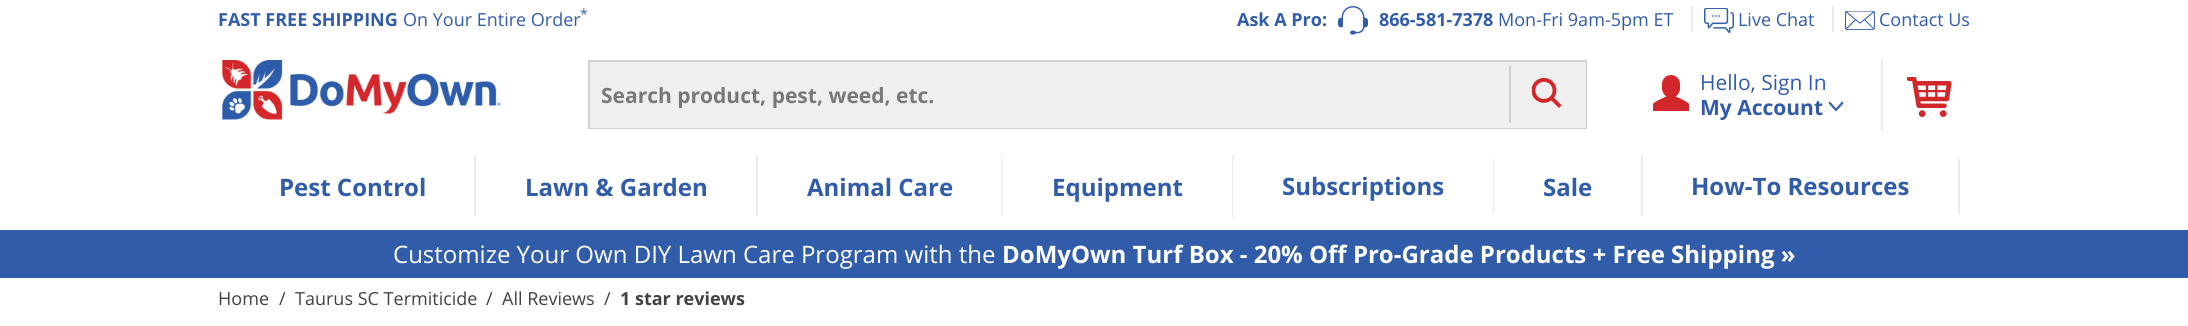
import math
import cairo

surface = cairo.ImageSurface(cairo.FORMAT_RGB24, 2188, 326)
ctx = cairo.Context(surface)
options = cairo.FontOptions()
options.set_hint_metrics(cairo.HINT_METRICS_OFF)
options.set_hint_style(cairo.HINT_STYLE_NONE)
ctx.set_font_options(options)
ctx.set_miter_limit(4)


def set_color(code):
    ctx.set_source_rgb(*(v / 255 for v in bytes.fromhex(code[-6:])))


def draw_text(x, y, s, family, size, color, bold=False, italic=False):
    ctx.select_font_face(family, cairo.FONT_SLANT_ITALIC if italic else cairo.FONT_SLANT_NORMAL, cairo.FONT_WEIGHT_BOLD if bold else cairo.FONT_WEIGHT_NORMAL)
    ctx.set_font_size(size)
    set_color(color)
    ctx.move_to(x, y)
    ctx.show_text(s)


def fill_rect(x, y, w, h, color):
    set_color(color)
    ctx.rectangle(x, y, w, h)
    ctx.fill()


def draw_image(path, x, y, w, h):
    ctx.save()
    ctx.set_source_surface(cairo.ImageSurface.create_from_png(path), x, y)
    ctx.rectangle(x, y, w, h)
    ctx.fill()
    ctx.restore()


set_color("#ffffff")
ctx.paint()
draw_text(218, 26, "FAST FREE SHIPPING", "Open Sans", 18, "#315caa", bold=True)
draw_text(403, 26, "On Your Entire Order", "Open Sans", 18, "#315caa")
draw_text(580, 19, "*", "Open Sans", 14, "#315caa")
draw_text(1237, 26, "Ask A Pro:", "Open Sans", 18, "#315caa", bold=True)
draw_image("assets/img1.png", 1338, 6, 30, 29)
draw_text(1379, 26, "866-581-7378", "Open Sans", 18, "#315caa", bold=True)
draw_text(1498, 26, "Mon-Fri 9am-5pm ET", "Open Sans", 18, "#315caa")
fill_rect(1691, 6, 2, 26, "#ebebeb")
fill_rect(1832, 6, 2, 26, "#ebebeb")
draw_image("assets/img2.png", 1704, 8, 30, 25)
draw_text(1738, 26, "Live Chat", "Open Sans", 18, "#315caa")
draw_image("assets/img3.png", 1845, 11, 30, 19)
draw_text(1879, 26, "Contact Us", "Open Sans", 18, "#315caa")
draw_image("assets/img4.png", 222, 60, 279, 60)
ctx.rectangle(589, 61, 997, 67)
set_color("#cfcfcf")
ctx.stroke()
fill_rect(590, 62, 996, 66, "#efefef")
ctx.save()
ctx.rectangle(602, 80, 951, 28)
ctx.clip()
draw_text(601, 103, "Search product, pest, weed, etc.", "Open Sans", 21, "#787878", bold=True)
ctx.restore()
fill_rect(1509, 66, 2, 57, "#cfcfcf")
draw_image("assets/img5.png", 1532, 78, 30, 30)
fill_rect(1881, 59, 2, 72, "#ebebeb")
draw_image("assets/img6.png", 1653, 75, 36, 36)
draw_text(1700, 90, "Hello, Sign In", "Open Sans", 21, "#315caa")
draw_text(1700, 115, "My Account", "Open Sans", 21, "#315caa", bold=True)
draw_image("assets/img7.png", 1829, 101, 15, 11)
draw_image("assets/img8.png", 1907, 77, 45, 40)
fill_rect(474, 155, 2, 63, "#ebebeb")
fill_rect(474, 216, 2, 2, "#ffffff")
draw_text(279, 196, "Pest Control", "Open Sans", 24, "#315caa", bold=True)
fill_rect(756, 155, 2, 63, "#ebebeb")
fill_rect(756, 216, 2, 2, "#ffffff")
draw_text(525, 196, "Lawn & Garden", "Open Sans", 24, "#315caa", bold=True)
fill_rect(1001, 155, 1, 63, "#ebebeb")
fill_rect(1001, 216, 1, 2, "#ffffff")
draw_text(807, 196, "Animal Care", "Open Sans", 24, "#315caa", bold=True)
fill_rect(1232, 155, 2, 63, "#ebebeb")
fill_rect(1232, 216, 1, 2, "#ffffff")
draw_text(1052, 196, "Equipment", "Open Sans", 24, "#315caa", bold=True)
fill_rect(1233, 159, 1, 2, "#ffffff")
fill_rect(1493, 159, 1, 56, "#ebebeb")
fill_rect(1233, 213, 261, 2, "#ffffff")
fill_rect(1233, 159, 1, 56, "#ffffff")
draw_text(1282, 195, "Subscriptions", "Open Sans", 24, "#315caa", bold=True)
fill_rect(1641, 155, 2, 63, "#ebebeb")
fill_rect(1641, 216, 2, 2, "#ffffff")
draw_text(1543, 196, "Sale", "Open Sans", 24, "#315caa", bold=True)
fill_rect(1958, 159, 2, 56, "#ebebeb")
fill_rect(1958, 213, 1, 2, "#ffffff")
draw_text(1691, 195, "How-To Resources", "Open Sans", 24, "#315caa", bold=True)
fill_rect(0, 230, 2188, 48, "#315caa")
draw_text(393, 263, "Customize Your Own DIY Lawn Care Program with the", "Open Sans", 24, "#ffffff")
draw_text(1002, 263, "DoMyOwn Turf Box - 20% Off Pro-Grade Products + Free Shipping »", "Open Sans", 24, "#ffffff", bold=True)
draw_text(218, 305, "Home", "Open Sans", 18, "#424242")
draw_text(279, 305, "/", "Open Sans", 18, "#424242")
draw_text(295, 305, "Taurus SC Termiticide", "Open Sans", 18, "#424242")
draw_text(486, 305, "/", "Open Sans", 18, "#424242")
draw_text(502, 305, "All Reviews", "Open Sans", 18, "#424242")
draw_text(604, 305, "/", "Open Sans", 18, "#424242")
draw_text(620, 305, "1 star reviews", "Open Sans", 18, "#424242", bold=True)
fill_rect(2186, 324, 2, 2, "#f5f5f5")
surface.write_to_png("output.png")
